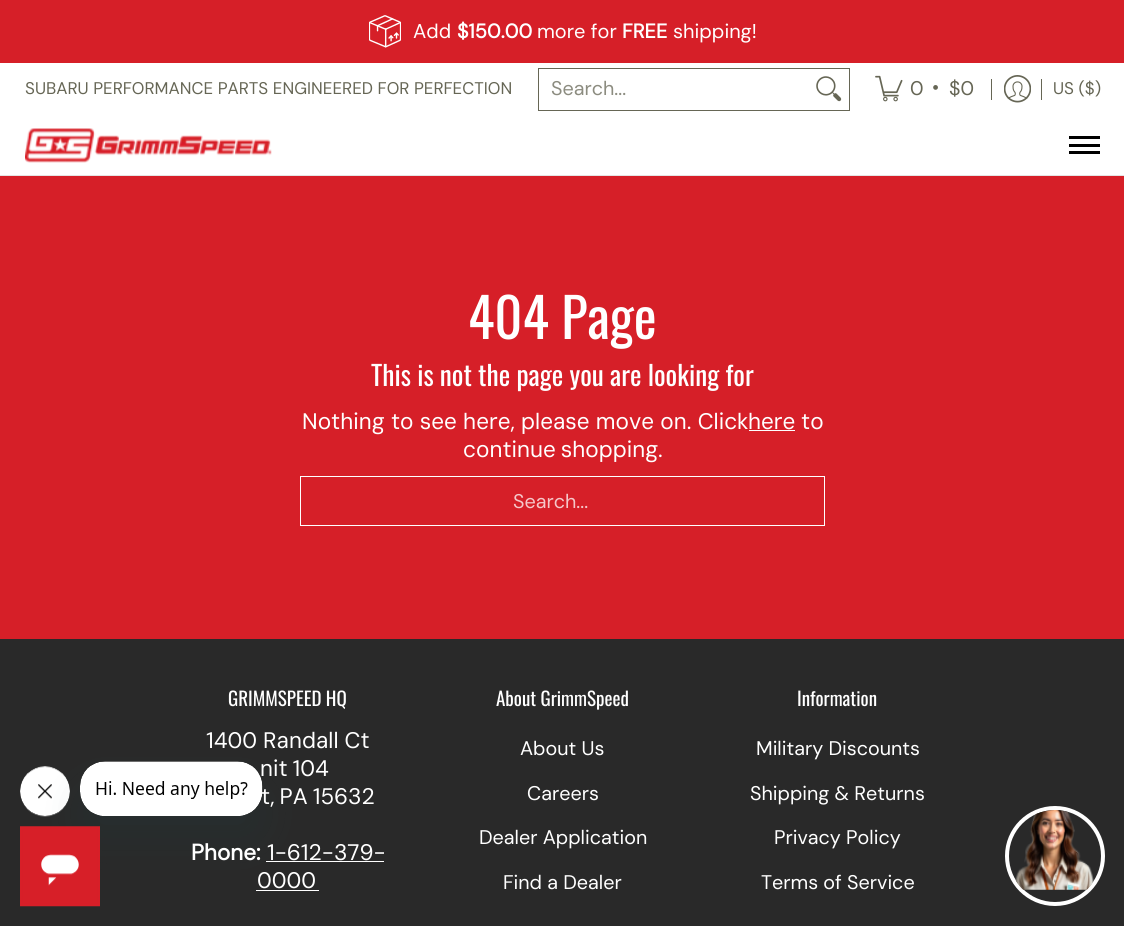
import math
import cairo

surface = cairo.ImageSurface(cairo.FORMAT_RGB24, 1124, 926)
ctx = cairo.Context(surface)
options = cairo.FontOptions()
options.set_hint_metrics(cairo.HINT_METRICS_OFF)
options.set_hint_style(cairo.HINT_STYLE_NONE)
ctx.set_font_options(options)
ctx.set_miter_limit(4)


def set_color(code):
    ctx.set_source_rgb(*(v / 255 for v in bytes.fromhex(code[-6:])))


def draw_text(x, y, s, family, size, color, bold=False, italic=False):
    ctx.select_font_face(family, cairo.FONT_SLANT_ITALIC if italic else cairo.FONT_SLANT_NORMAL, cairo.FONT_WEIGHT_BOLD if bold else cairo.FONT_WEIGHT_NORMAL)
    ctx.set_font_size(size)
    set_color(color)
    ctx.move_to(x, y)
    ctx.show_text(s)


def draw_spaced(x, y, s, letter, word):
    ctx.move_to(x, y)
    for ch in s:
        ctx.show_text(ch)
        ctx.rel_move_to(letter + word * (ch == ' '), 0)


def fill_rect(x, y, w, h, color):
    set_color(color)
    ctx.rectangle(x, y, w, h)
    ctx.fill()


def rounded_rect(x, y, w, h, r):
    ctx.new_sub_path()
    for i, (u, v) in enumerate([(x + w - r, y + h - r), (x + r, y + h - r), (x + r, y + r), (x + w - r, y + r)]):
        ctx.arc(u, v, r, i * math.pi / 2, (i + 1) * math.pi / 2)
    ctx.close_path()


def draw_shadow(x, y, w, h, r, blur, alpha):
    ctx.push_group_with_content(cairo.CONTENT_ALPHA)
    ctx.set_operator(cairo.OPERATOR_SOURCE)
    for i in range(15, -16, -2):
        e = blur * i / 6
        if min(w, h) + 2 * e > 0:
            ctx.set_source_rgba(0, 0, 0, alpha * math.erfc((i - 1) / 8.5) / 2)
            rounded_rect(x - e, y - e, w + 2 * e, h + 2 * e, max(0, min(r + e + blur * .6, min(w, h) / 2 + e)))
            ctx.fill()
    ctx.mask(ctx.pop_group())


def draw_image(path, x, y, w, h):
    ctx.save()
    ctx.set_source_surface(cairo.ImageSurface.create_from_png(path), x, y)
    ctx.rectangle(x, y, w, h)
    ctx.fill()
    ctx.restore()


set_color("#ffffff")
ctx.paint()
fill_rect(0, 0, 1124, 63, "#d61f28")
draw_image("assets/img1.png", 369, 15, 32, 33)
draw_text(413, 38, "Add", "DM Sans", 20, "#ffffff")
draw_text(457, 38, "$150.00", "DM Sans", 20, "#ffffff", bold=True)
draw_text(537, 38, "more for", "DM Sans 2", 20, "#ffffff")
draw_text(622, 38, "FREE", "DM Sans", 20, "#ffffff", bold=True)
draw_text(673, 38, "shipping!", "DM Sans 2", 20, "#ffffff")
draw_text(25, 94, "SUBARU PERFORMANCE PARTS ENGINEERED FOR PERFECTION", "DM Sans", 16.9, "#666655")
ctx.rectangle(538.5, 68.5, 311, 42)
ctx.set_line_width(1)
ctx.stroke()
draw_text(551, 95, "Search...", "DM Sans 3", 19.75, "#8c8c80")
draw_image("assets/img2.png", 816, 76, 26, 26)
draw_image("assets/img3.png", 875, 75, 28, 27)
draw_text(910, 95, "0", "DM Sans 3", 19.75, "#666655")
draw_text(932, 94, "•", "DM Sans 3", 19.75, "#666655")
draw_text(949, 95, "$0", "DM Sans 3", 19.75, "#666655")
fill_rect(991, 79, 1, 21, "#666655")
draw_image("assets/img4.png", 1004, 75, 27, 28)
fill_rect(1041, 79, 1, 21, "#666655")
draw_text(1053, 94, "US ($)", "DM Sans", 16.9, "#666655")
fill_rect(0, 175, 1124, 1, "#e4e4e4")
draw_image("assets/img5.png", 25, 128, 247, 35)
fill_rect(1069, 136, 31, 3, "#000000")
fill_rect(1069, 151, 31, 3, "#000000")
fill_rect(1069, 144, 31, 3, "#000000")
fill_rect(0, 176, 1124, 463, "#d61f28")
draw_text(468, 339, "404 Page", "Oswald", 54.5, "#ffffff")
draw_text(371, 386, "This is not the page you are looking for", "Oswald", 27.3, "#ffffff")
ctx.select_font_face("DM Sans")
ctx.set_font_size(22.5)
draw_spaced(302, 429, "Nothing to see here, please move on. Click", 0, 0.25)
draw_text(748, 429, "here", "DM Sans", 22.5, "#ffffff")
fill_rect(749, 430, 46, 1, "#ffffff")
draw_text(801, 429, "to", "DM Sans", 22.5, "#ffffff")
draw_spaced(463, 457, "continue shopping.", 0, -1)
ctx.rectangle(300.5, 476.5, 524, 49)
ctx.stroke()
draw_text(513, 508, "Search...", "DM Sans 3", 19.75, "#f5c7c9")
fill_rect(0, 639, 1124, 287, "#292929")
draw_image("assets/img7.png", 20, 766, 50, 51)
fill_rect(266, 861, 118, 1, "#ffffff")
fill_rect(256, 890, 63, 1, "#ffffff")
set_color("#17494d")
draw_shadow(80, 786, 183, 55, 25, 19, 0.15)
ctx.select_font_face("DM Sans")
ctx.set_font_size(22.5)
set_color("#ffffff")
draw_spaced(260, 776, "nit 104", 0, -1)
draw_spaced(261, 804, "t, PA 15632", 0, -1)
draw_image("assets/img6.png", 80, 761, 183, 55)
draw_image("assets/img8.png", 20, 826, 80, 81)
draw_text(228, 706, "GRIMMSPEED HQ", "Oswald", 19, "#ffffff")
draw_text(206, 748, "1400 Randall Ct", "DM Sans", 22.5, "#ffffff")
draw_text(191, 860, "Phone:", "DM Sans 2", 22.5, "#ffffff", bold=True)
draw_text(267, 860, "1-612-379-", "DM Sans", 22.5, "#ffffff")
draw_text(257, 888, "0000", "DM Sans", 22.5, "#ffffff")
draw_text(496, 706, "About GrimmSpeed", "Oswald", 19, "#ffffff")
draw_text(520, 755, "About Us", "DM Sans 3", 19.75, "#ffffff")
draw_text(527, 800, "Careers", "DM Sans 3", 19.75, "#ffffff")
draw_text(479, 844, "Dealer Application", "DM Sans 3", 19.75, "#ffffff")
draw_text(503, 889, "Find a Dealer", "DM Sans 3", 19.75, "#ffffff")
draw_text(797, 706, "Information", "Oswald", 19, "#ffffff")
draw_text(756, 755, "Military Discounts", "DM Sans 3", 19.75, "#ffffff")
draw_text(750, 800, "Shipping & Returns", "DM Sans 3", 19.75, "#ffffff")
draw_text(774, 844, "Privacy Policy", "DM Sans 3", 19.75, "#ffffff")
draw_text(761, 889, "Terms of Service", "DM Sans 3", 19.75, "#ffffff")
ctx.new_path()
ctx.arc(1055, 856, 48, 0, 2 * math.pi)
ctx.set_line_width(4)
ctx.stroke()
draw_image("assets/img9.png", 1015, 810, 79, 80)
surface.write_to_png("output.png")
